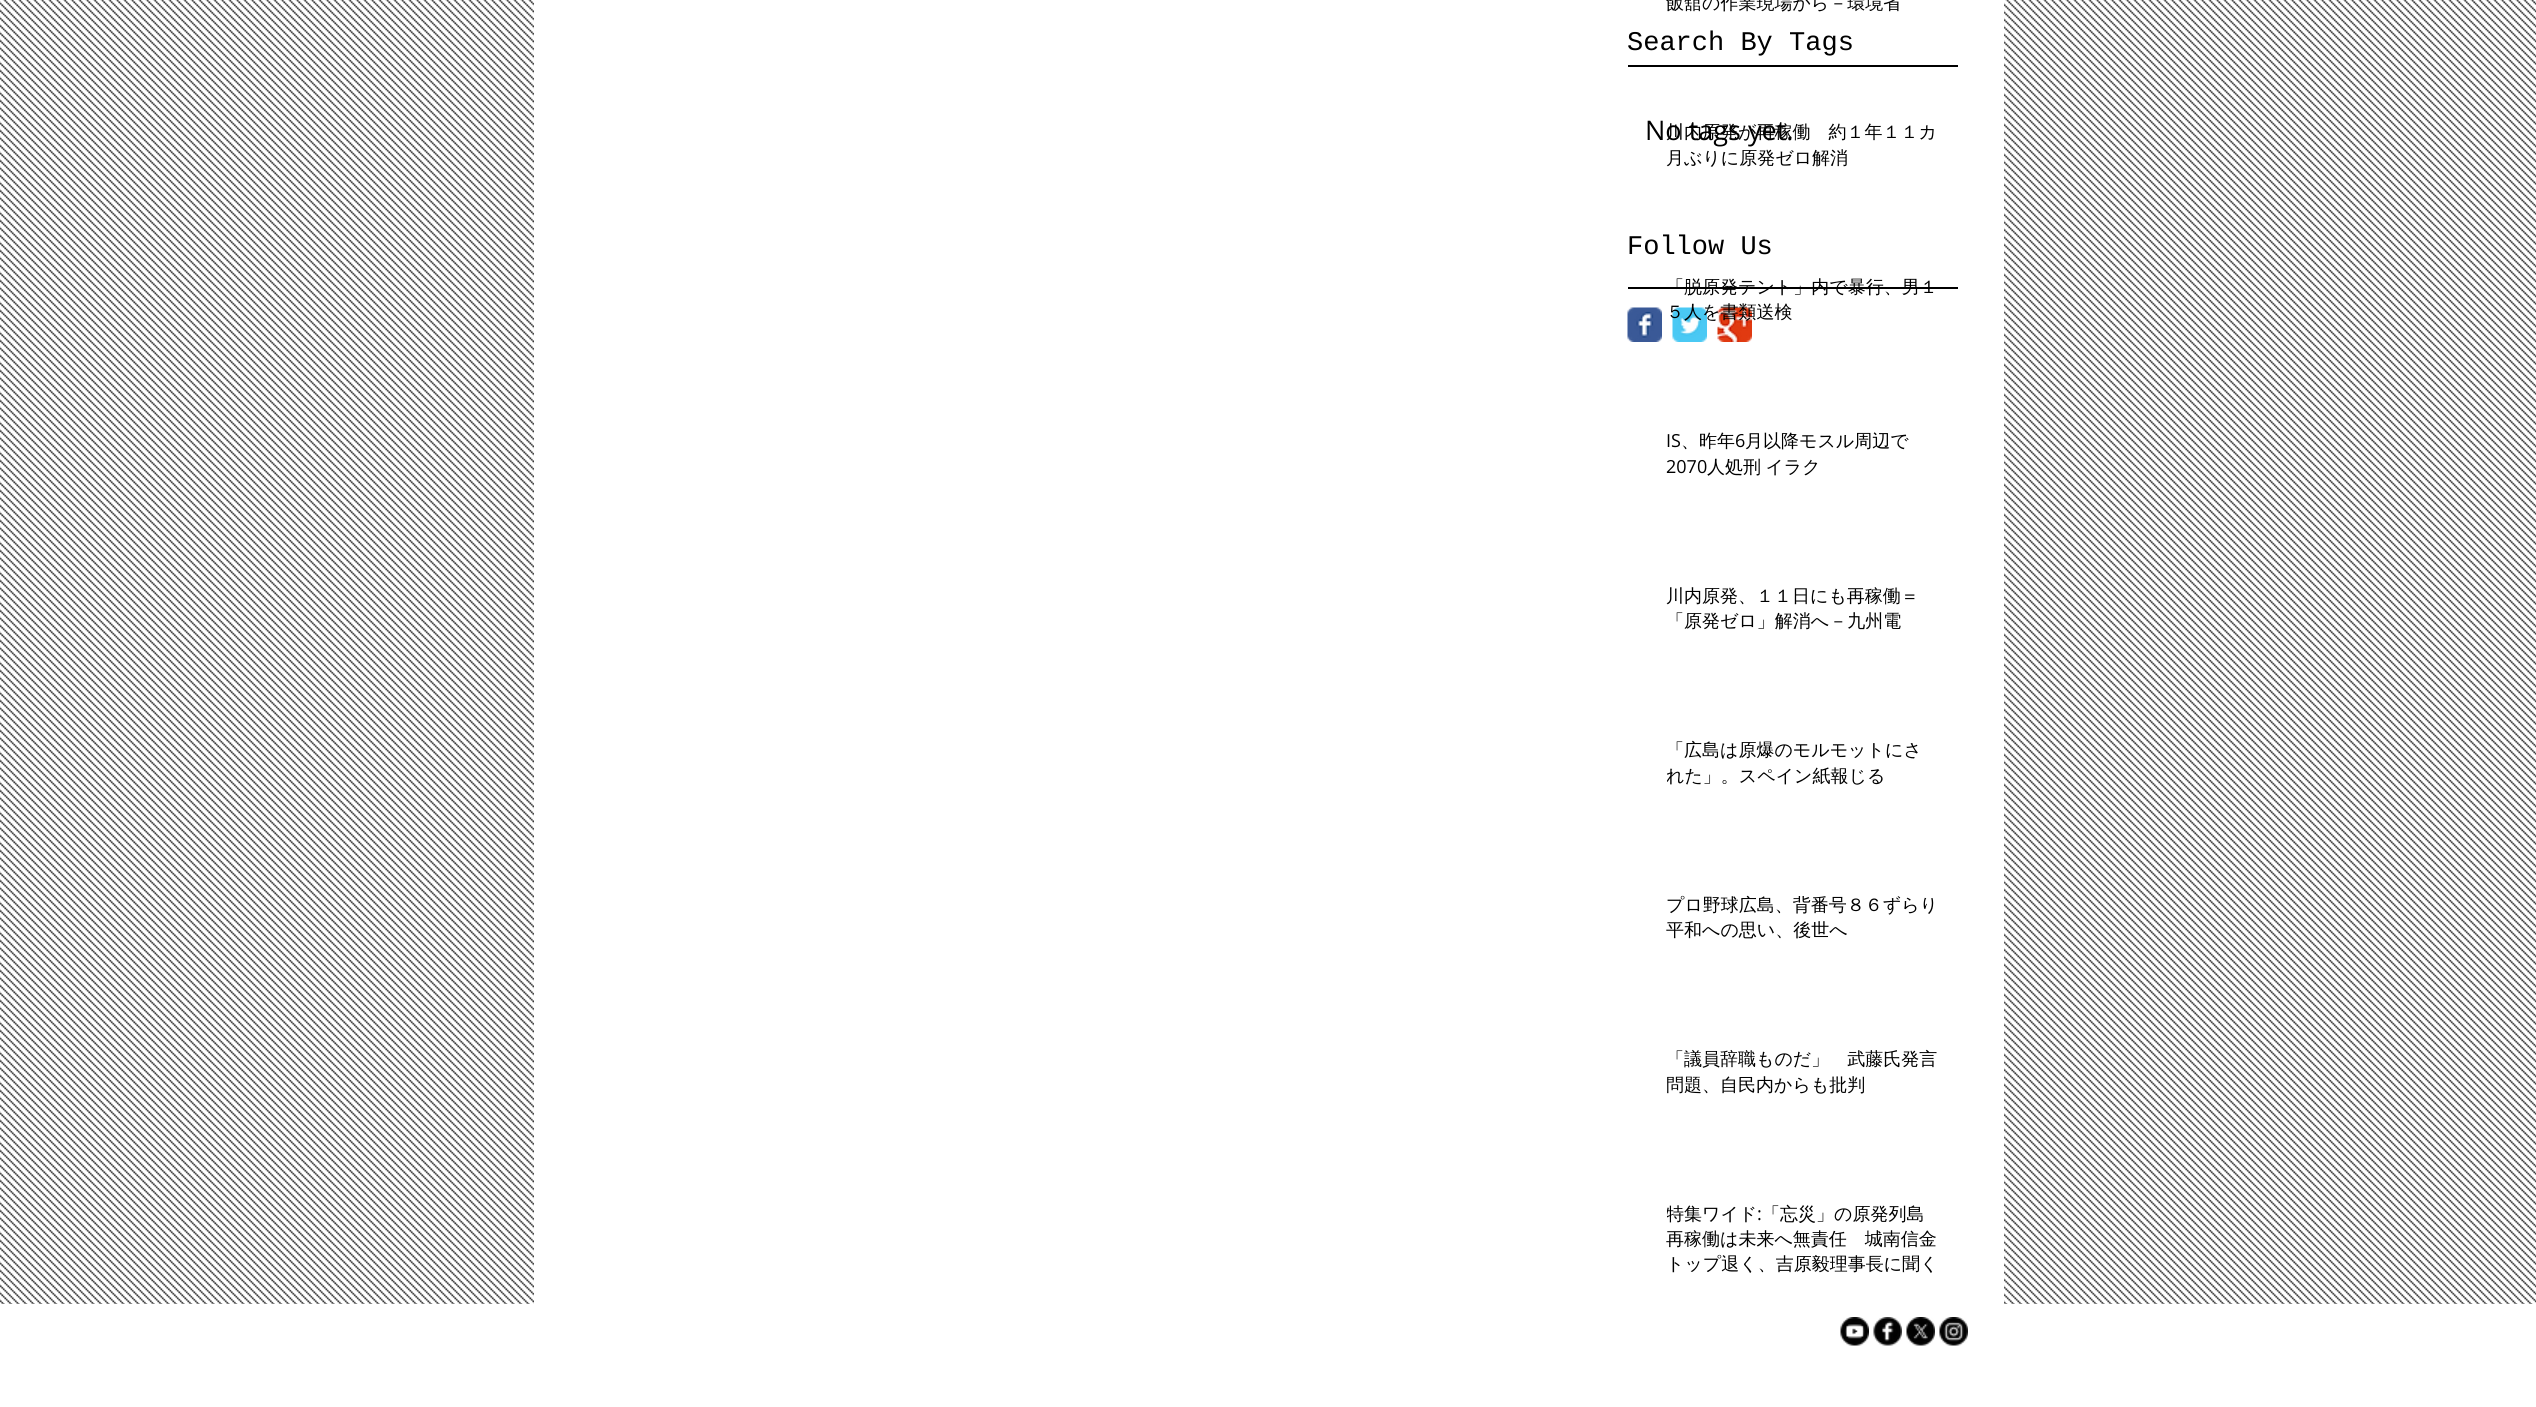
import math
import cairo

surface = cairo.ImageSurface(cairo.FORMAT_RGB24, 2536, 1407)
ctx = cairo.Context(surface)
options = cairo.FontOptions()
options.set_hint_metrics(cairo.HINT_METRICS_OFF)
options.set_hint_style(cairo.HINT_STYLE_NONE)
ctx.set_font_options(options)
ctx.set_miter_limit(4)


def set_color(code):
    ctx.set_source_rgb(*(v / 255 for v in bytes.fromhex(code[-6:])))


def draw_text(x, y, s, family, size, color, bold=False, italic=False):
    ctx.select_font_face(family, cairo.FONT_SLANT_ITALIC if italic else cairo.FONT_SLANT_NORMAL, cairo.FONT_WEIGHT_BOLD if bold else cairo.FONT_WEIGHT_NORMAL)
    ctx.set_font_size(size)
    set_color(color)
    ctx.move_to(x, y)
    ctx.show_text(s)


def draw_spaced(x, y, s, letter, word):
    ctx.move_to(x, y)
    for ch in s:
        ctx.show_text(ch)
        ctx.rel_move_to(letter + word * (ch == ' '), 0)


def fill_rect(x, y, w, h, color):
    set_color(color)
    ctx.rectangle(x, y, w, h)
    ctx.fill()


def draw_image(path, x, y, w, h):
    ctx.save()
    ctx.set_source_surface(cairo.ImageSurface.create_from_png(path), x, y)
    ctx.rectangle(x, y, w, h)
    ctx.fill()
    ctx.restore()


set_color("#ffffff")
ctx.paint()
draw_image("assets/img1.png", 0, 0, 2536, 1304)
fill_rect(534, 0, 1470, 1304, "#ffffff")
draw_text(1666, 9, "飯舘の作業現場から－環境省", "WenQuanYi Zen Hei Medium", 18, "#000000")
draw_text(1645, 140, "No tags yet.", "Open Sans", 27, "#000000")
draw_text(1666, 138, "川内原発が再稼働　約１年１１カ", "WenQuanYi Zen Hei Medium", 18, "#000000")
draw_text(1666, 164, "月ぶりに原発ゼロ解消", "WenQuanYi Zen Hei Medium", 18, "#000000")
fill_rect(1628, 287, 330, 2, "#000000")
draw_text(1666, 293, "「脱原発テント」内で暴行、男１", "WenQuanYi Zen Hei Medium", 18, "#000000")
draw_image("assets/img3.png", 1672, 307, 35, 35)
draw_image("assets/img4.png", 1717, 307, 35, 35)
draw_text(1666, 318, "５人を書類送検", "WenQuanYi Zen Hei Medium", 18, "#000000")
draw_text(1666, 447, "IS", "Open Sans", 18, "#000000")
draw_text(1681, 447, "、昨年", "WenQuanYi Zen Hei Medium", 18, "#000000")
draw_text(1735, 447, "6", "Open Sans", 18, "#000000")
draw_text(1745, 447, "月以降モスル周辺で", "WenQuanYi Zen Hei Medium", 18, "#000000")
draw_text(1666, 473, "2070", "Open Sans", 18, "#000000")
ctx.select_font_face("WenQuanYi Zen Hei Medium")
draw_spaced(1707, 473, "人処刑 イラク", 0, -1)
draw_text(1666, 602, "川内原発、１１日にも再稼働＝", "WenQuanYi Zen Hei Medium", 18, "#000000")
draw_text(1666, 627, "「原発ゼロ」解消へ－九州電", "WenQuanYi Zen Hei Medium", 18, "#000000")
draw_text(1666, 756, "「広島は原爆のモルモットにさ", "WenQuanYi Zen Hei Medium", 18, "#000000")
ctx.save()
ctx.rectangle(1667, 737, 273, 51)
ctx.clip()
draw_text(1666, 782, "れた」。スペイン紙報じる", "WenQuanYi Zen Hei Medium", 18, "#000000")
ctx.restore()
draw_text(1666, 911, "プロ野球広島、背番号８６ずらり", "WenQuanYi Zen Hei Medium", 18, "#000000")
draw_text(1666, 936, "平和への思い、後世へ", "WenQuanYi Zen Hei Medium", 18, "#000000")
draw_text(1666, 1065, "「議員辞職ものだ」　武藤氏発言", "WenQuanYi Zen Hei Medium", 18, "#000000")
ctx.save()
ctx.rectangle(1667, 1046, 273, 51)
ctx.clip()
draw_text(1666, 1091, "問題、自民内からも批判", "WenQuanYi Zen Hei Medium", 18, "#000000")
ctx.restore()
ctx.save()
ctx.rectangle(1667, 1200, 273, 77)
ctx.clip()
draw_text(1666, 1220, "特集ワイド", "WenQuanYi Zen Hei Medium", 18, "#000000")
ctx.restore()
draw_text(1757, 1220, ":", "Open Sans", 18, "#000000")
draw_text(1762, 1220, "「忘災」の原発列島", "WenQuanYi Zen Hei Medium", 18, "#000000")
draw_text(1666, 1245, "再稼働は未来へ無責任　城南信金", "WenQuanYi Zen Hei Medium", 18, "#000000")
draw_text(1666, 1270, "トップ退く、吉原毅理事長に聞く", "WenQuanYi Zen Hei Medium", 18, "#000000")
draw_text(1627, 50, "Search By Tags", "Liberation Mono", 27, "#000000")
fill_rect(1628, 65, 330, 2, "#000000")
draw_text(1627, 254, "Follow Us", "Liberation Mono", 27, "#000000")
draw_image("assets/img2.png", 1627, 307, 35, 35)
draw_image("assets/img5.png", 1840, 1317, 29, 29)
draw_image("assets/img6.png", 1873, 1317, 29, 29)
draw_image("assets/img7.png", 1906, 1317, 29, 29)
draw_image("assets/img8.png", 1939, 1317, 29, 29)
surface.write_to_png("output.png")
